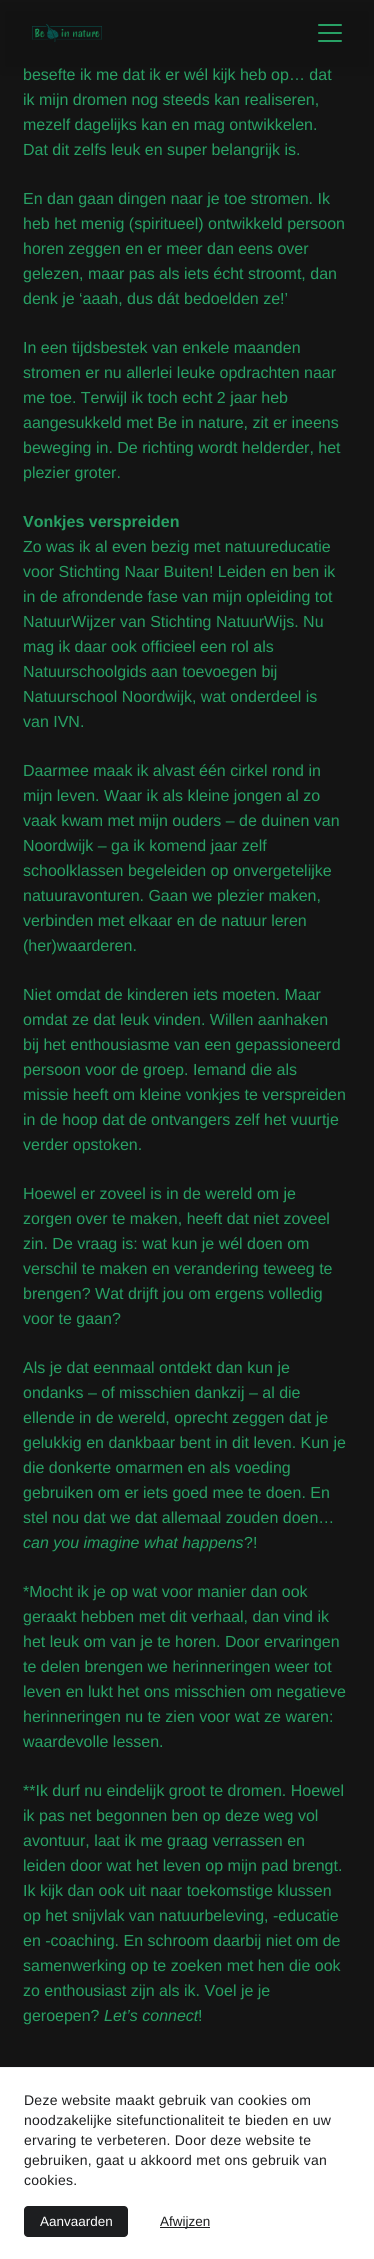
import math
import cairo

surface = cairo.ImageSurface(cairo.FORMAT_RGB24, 374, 2259)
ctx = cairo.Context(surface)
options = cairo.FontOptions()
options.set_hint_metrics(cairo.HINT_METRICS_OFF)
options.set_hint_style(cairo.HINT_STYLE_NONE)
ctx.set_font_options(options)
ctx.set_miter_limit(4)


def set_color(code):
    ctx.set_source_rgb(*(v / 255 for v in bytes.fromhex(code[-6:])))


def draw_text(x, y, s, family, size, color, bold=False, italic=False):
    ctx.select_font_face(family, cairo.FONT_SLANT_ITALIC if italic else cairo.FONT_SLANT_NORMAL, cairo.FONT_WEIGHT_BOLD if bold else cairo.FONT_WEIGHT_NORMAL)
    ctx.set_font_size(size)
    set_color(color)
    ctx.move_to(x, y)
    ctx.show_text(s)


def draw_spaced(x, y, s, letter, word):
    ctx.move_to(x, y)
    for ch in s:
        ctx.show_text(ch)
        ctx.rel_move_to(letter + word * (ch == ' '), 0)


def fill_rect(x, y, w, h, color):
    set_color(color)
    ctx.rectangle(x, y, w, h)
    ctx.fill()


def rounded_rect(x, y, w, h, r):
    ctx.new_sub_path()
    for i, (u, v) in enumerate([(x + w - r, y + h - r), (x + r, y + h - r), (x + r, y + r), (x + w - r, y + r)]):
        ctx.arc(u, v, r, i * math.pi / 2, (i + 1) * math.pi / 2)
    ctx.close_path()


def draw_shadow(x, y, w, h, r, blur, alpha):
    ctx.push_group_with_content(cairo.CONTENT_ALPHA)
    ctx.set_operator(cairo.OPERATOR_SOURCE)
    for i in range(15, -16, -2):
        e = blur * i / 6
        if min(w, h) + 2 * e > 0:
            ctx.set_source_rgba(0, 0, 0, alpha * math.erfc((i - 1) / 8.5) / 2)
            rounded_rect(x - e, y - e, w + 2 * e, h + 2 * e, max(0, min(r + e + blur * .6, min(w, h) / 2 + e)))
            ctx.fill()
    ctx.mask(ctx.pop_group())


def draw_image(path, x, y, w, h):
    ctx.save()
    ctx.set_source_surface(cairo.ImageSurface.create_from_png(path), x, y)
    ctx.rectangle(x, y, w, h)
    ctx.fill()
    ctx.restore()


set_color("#141414")
ctx.paint()
set_color("#000000")
draw_shadow(0, 6, 374, 66, 0, 7, 0.1)
draw_image("assets/img1.png", 32, 24, 70, 18)
set_color("#28a165")
rounded_rect(318, 24, 24, 2, 1)
ctx.fill()
rounded_rect(318, 32, 24, 2, 1)
ctx.fill()
rounded_rect(318, 40, 24, 2, 1)
ctx.fill()
draw_text(23, 80, "besefte ik me dat ik er wél kijk heb op… dat", "Liberation Sans", 16, "#28a165")
draw_text(23, 105, "ik mijn dromen nog steeds kan realiseren,", "Liberation Sans", 16, "#28a165")
draw_text(23, 130, "mezelf dagelijks kan en mag ontwikkelen.", "Liberation Sans", 16, "#28a165")
draw_text(23, 155, "Dat dit zelfs leuk en super belangrijk is.", "Liberation Sans", 16, "#28a165")
draw_text(23, 204, "En dan gaan dingen naar je toe stromen. Ik", "Liberation Sans", 16, "#28a165")
draw_text(23, 229, "heb het menig (spiritueel) ontwikkeld persoon", "Liberation Sans", 16, "#28a165")
draw_text(23, 254, "horen zeggen en er meer dan eens over", "Liberation Sans", 16, "#28a165")
draw_text(23, 279, "gelezen, maar pas als iets écht stroomt, dan", "Liberation Sans", 16, "#28a165")
draw_text(23, 304, "denk je ‘aaah, dus dát bedoelden ze!’", "Liberation Sans", 16, "#28a165")
draw_text(23, 353, "In een tijdsbestek van enkele maanden", "Liberation Sans", 16, "#28a165")
draw_text(23, 378, "stromen er nu allerlei leuke opdrachten naar", "Liberation Sans", 16, "#28a165")
draw_text(23, 403, "me toe. Terwijl ik toch echt 2 jaar heb", "Liberation Sans", 16, "#28a165")
draw_text(23, 428, "aangesukkeld met Be in nature, zit er ineens", "Liberation Sans", 16, "#28a165")
draw_text(23, 453, "beweging in. De richting wordt helderder, het", "Liberation Sans", 16, "#28a165")
draw_text(23, 478, "plezier groter.", "Liberation Sans", 16, "#28a165")
draw_text(23, 527, "Vonkjes verspreiden", "Liberation Sans", 16, "#28a165", bold=True)
draw_text(23, 552, "Zo was ik al even bezig met natuureducatie", "Liberation Sans", 16, "#28a165")
draw_text(23, 577, "voor Stichting Naar Buiten! Leiden en ben ik", "Liberation Sans", 16, "#28a165")
draw_text(23, 602, "in de afrondende fase van mijn opleiding tot", "Liberation Sans", 16, "#28a165")
draw_text(23, 627, "NatuurWijzer van Stichting NatuurWijs. Nu", "Liberation Sans", 16, "#28a165")
draw_text(23, 652, "mag ik daar ook officieel een rol als", "Liberation Sans", 16, "#28a165")
draw_text(23, 677, "Natuurschoolgids aan toevoegen bij", "Liberation Sans", 16, "#28a165")
draw_text(23, 702, "Natuurschool Noordwijk, wat onderdeel is", "Liberation Sans", 16, "#28a165")
draw_text(23, 727, "van IVN.", "Liberation Sans", 16, "#28a165")
draw_text(23, 776, "Daarmee maak ik alvast één cirkel rond in", "Liberation Sans", 16, "#28a165")
draw_text(23, 801, "mijn leven. Waar ik als kleine jongen al zo", "Liberation Sans", 16, "#28a165")
draw_text(23, 826, "vaak kwam met mijn ouders – de duinen van", "Liberation Sans", 16, "#28a165")
draw_text(23, 851, "Noordwijk – ga ik komend jaar zelf", "Liberation Sans", 16, "#28a165")
draw_text(23, 876, "schoolklassen begeleiden op onvergetelijke", "Liberation Sans", 16, "#28a165")
draw_text(23, 901, "natuuravonturen. Gaan we plezier maken,", "Liberation Sans", 16, "#28a165")
draw_text(23, 926, "verbinden met elkaar en de natuur leren", "Liberation Sans", 16, "#28a165")
draw_text(23, 951, "(her)waarderen.", "Liberation Sans", 16, "#28a165")
draw_text(23, 1000, "Niet omdat de kinderen iets moeten. Maar", "Liberation Sans", 16, "#28a165")
draw_text(23, 1025, "omdat ze dat leuk vinden. Willen aanhaken", "Liberation Sans", 16, "#28a165")
draw_text(23, 1050, "bij het enthousiasme van een gepassioneerd", "Liberation Sans", 16, "#28a165")
draw_text(23, 1075, "persoon voor de groep. Iemand die als", "Liberation Sans", 16, "#28a165")
draw_text(23, 1100, "missie heeft om kleine vonkjes te verspreiden", "Liberation Sans", 16, "#28a165")
draw_text(23, 1125, "in de hoop dat de ontvangers zelf het vuurtje", "Liberation Sans", 16, "#28a165")
draw_text(23, 1150, "verder opstoken.", "Liberation Sans", 16, "#28a165")
draw_text(23, 1199, "Hoewel er zoveel is in de wereld om je", "Liberation Sans", 16, "#28a165")
draw_text(23, 1224, "zorgen over te maken, heeft dat niet zoveel", "Liberation Sans", 16, "#28a165")
draw_text(23, 1249, "zin. De vraag is: wat kun je wél doen om", "Liberation Sans", 16, "#28a165")
draw_text(23, 1274, "verschil te maken en verandering teweeg te", "Liberation Sans", 16, "#28a165")
draw_text(23, 1299, "brengen? Wat drijft jou om ergens volledig", "Liberation Sans", 16, "#28a165")
draw_text(23, 1324, "voor te gaan?", "Liberation Sans", 16, "#28a165")
draw_text(23, 1373, "Als je dat eenmaal ontdekt dan kun je", "Liberation Sans", 16, "#28a165")
draw_text(23, 1398, "ondanks – of misschien dankzij – al die", "Liberation Sans", 16, "#28a165")
draw_text(23, 1423, "ellende in de wereld, oprecht zeggen dat je", "Liberation Sans", 16, "#28a165")
draw_text(23, 1448, "gelukkig en dankbaar bent in dit leven. Kun je", "Liberation Sans", 16, "#28a165")
draw_text(23, 1473, "die donkerte omarmen en als voeding", "Liberation Sans", 16, "#28a165")
draw_text(23, 1498, "gebruiken om er iets goed mee te doen. En", "Liberation Sans", 16, "#28a165")
draw_text(23, 1523, "stel nou dat we dat allemaal zouden doen…", "Liberation Sans", 16, "#28a165")
draw_text(23, 1548, "can you imagine what happens", "Liberation Sans", 16, "#28a165", italic=True)
draw_text(244, 1548, "?!", "Liberation Sans", 16, "#28a165")
draw_text(23, 1597, "*Mocht ik je op wat voor manier dan ook", "Liberation Sans", 16, "#28a165")
draw_text(23, 1622, "geraakt hebben met dit verhaal, dan vind ik", "Liberation Sans", 16, "#28a165")
draw_text(23, 1647, "het leuk om van je te horen. Door ervaringen", "Liberation Sans", 16, "#28a165")
draw_text(23, 1672, "te delen brengen we herinneringen weer tot", "Liberation Sans", 16, "#28a165")
draw_text(23, 1697, "leven en lukt het ons misschien om negatieve", "Liberation Sans", 16, "#28a165")
draw_text(23, 1722, "herinneringen nu te zien voor wat ze waren:", "Liberation Sans", 16, "#28a165")
draw_text(23, 1747, "waardevolle lessen.", "Liberation Sans", 16, "#28a165")
draw_text(23, 1796, "**Ik durf nu eindelijk groot te dromen. Hoewel", "Liberation Sans", 16, "#28a165")
draw_text(23, 1821, "ik pas net begonnen ben op deze weg vol", "Liberation Sans", 16, "#28a165")
draw_text(23, 1846, "avontuur, laat ik me graag verrassen en", "Liberation Sans", 16, "#28a165")
draw_text(23, 1871, "leiden door wat het leven op mijn pad brengt.", "Liberation Sans", 16, "#28a165")
draw_text(23, 1896, "Ik kijk dan ook uit naar toekomstige klussen", "Liberation Sans", 16, "#28a165")
draw_text(23, 1921, "op het snijvlak van natuurbeleving, -educatie", "Liberation Sans", 16, "#28a165")
draw_text(23, 1946, "en -coaching. En schroom daarbij niet om de", "Liberation Sans", 16, "#28a165")
draw_text(23, 1971, "samenwerking op te zoeken met hen die ook", "Liberation Sans", 16, "#28a165")
draw_text(23, 1996, "zo enthousiast zijn als ik. Voel je je", "Liberation Sans", 16, "#28a165")
draw_text(23, 2021, "geroepen?", "Liberation Sans", 16, "#28a165")
draw_text(104, 2021, "Let’s connect", "Liberation Sans", 16, "#28a165", italic=True)
draw_text(198, 2021, "!", "Liberation Sans", 16, "#28a165")
fill_rect(0, 2068, 374, 191, "#ffffff")
fill_rect(0, 2067, 374, 1, "#f2f3f6")
ctx.set_font_size(14)
set_color("#1d1e20")
draw_spaced(24, 2105, "Deze website maakt gebruik van cookies om", 0.25, 0)
draw_spaced(24, 2125, "noodzakelijke sitefunctionaliteit te bieden en uw", 0.25, 0)
draw_spaced(24, 2145, "ervaring te verbeteren. Door deze website te", 0.25, 0)
draw_spaced(24, 2165, "gebruiken, gaat u akkoord met ons gebruik van", 0.25, 0)
draw_spaced(24, 2185, "cookies.", 0.25, 0)
rounded_rect(24, 2206, 104, 31, 4)
ctx.fill()
draw_text(40, 2226, "Aanvaarden", "Liberation Sans", 13.5, "#ffffff")
fill_rect(160, 2227, 50, 1, "#1d1e20")
draw_text(160, 2226, "Afwijzen", "Liberation Sans", 13.5, "#1d1e20")
surface.write_to_png("output.png")
